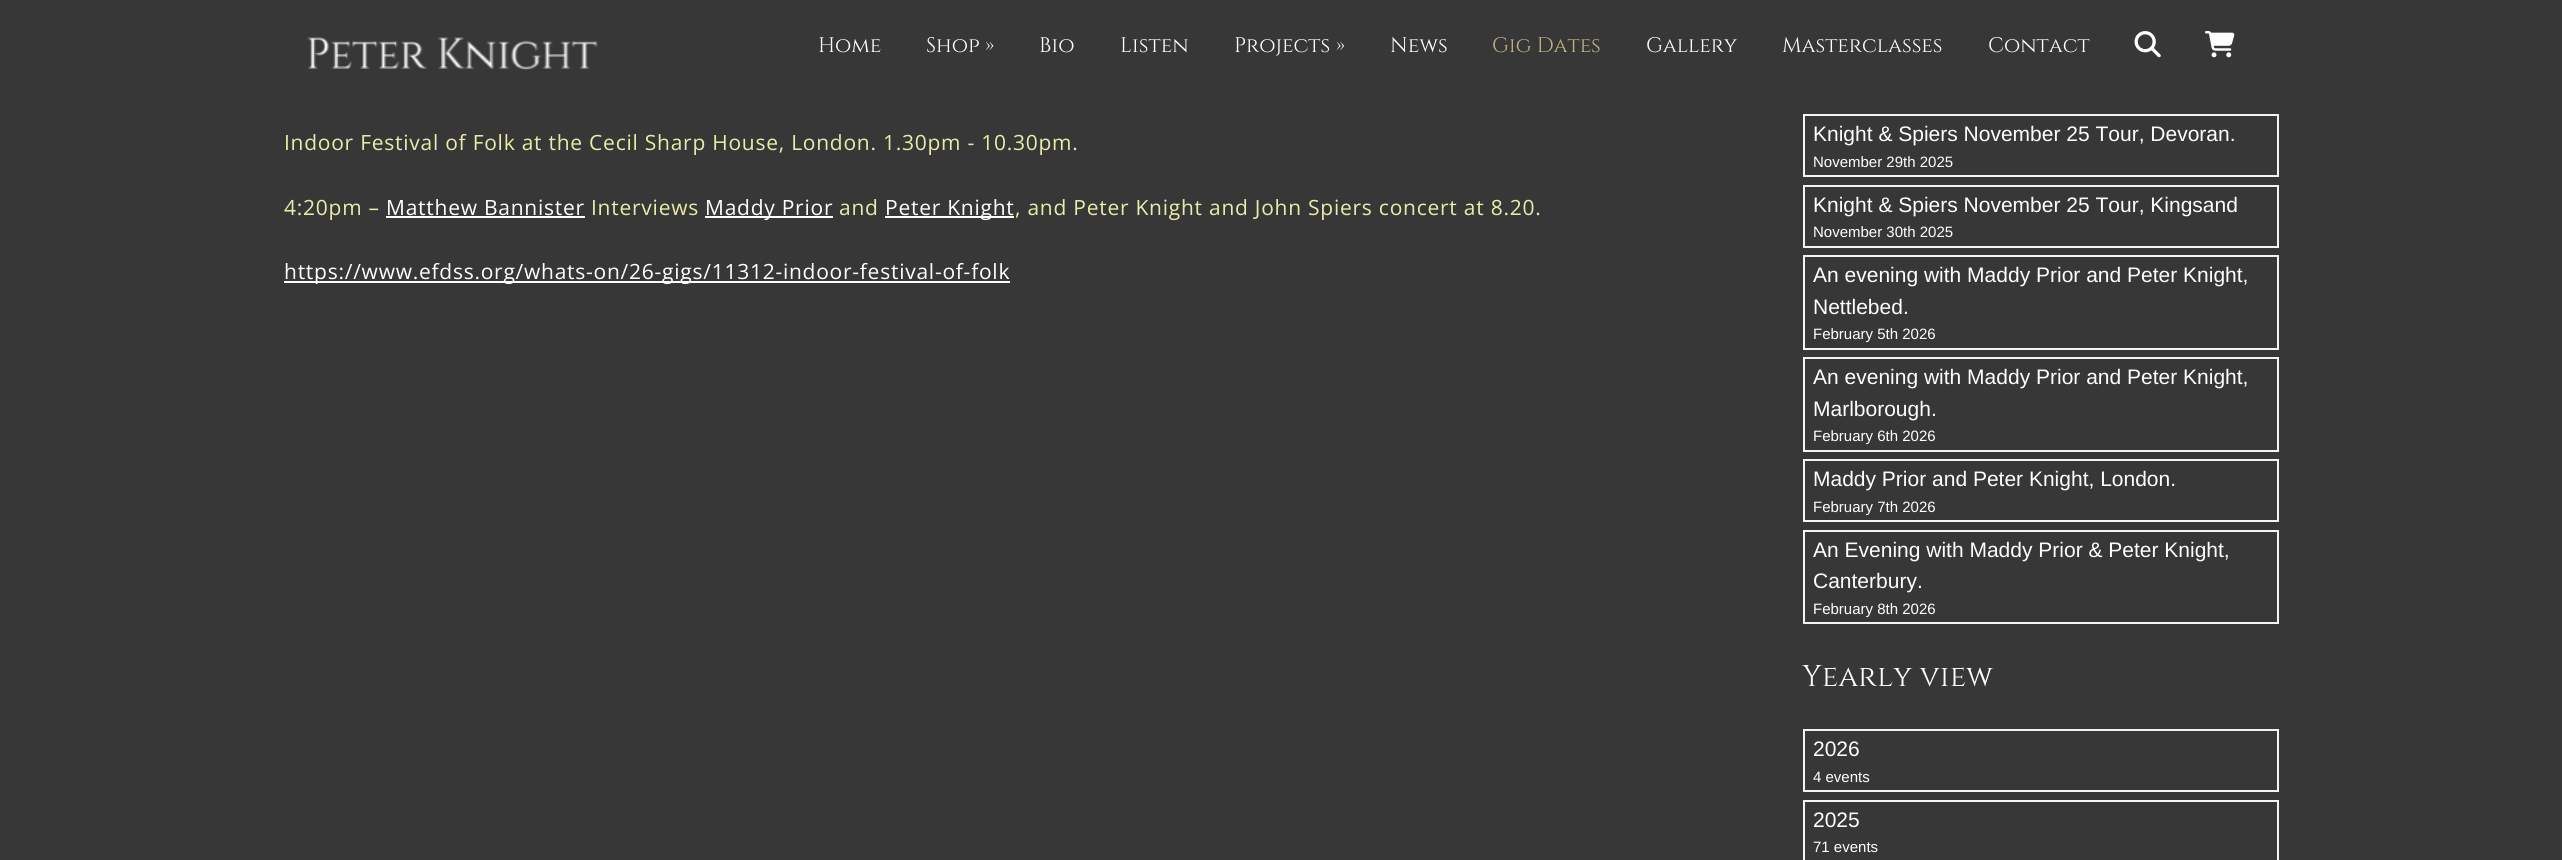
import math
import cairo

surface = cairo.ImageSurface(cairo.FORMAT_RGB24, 2562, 860)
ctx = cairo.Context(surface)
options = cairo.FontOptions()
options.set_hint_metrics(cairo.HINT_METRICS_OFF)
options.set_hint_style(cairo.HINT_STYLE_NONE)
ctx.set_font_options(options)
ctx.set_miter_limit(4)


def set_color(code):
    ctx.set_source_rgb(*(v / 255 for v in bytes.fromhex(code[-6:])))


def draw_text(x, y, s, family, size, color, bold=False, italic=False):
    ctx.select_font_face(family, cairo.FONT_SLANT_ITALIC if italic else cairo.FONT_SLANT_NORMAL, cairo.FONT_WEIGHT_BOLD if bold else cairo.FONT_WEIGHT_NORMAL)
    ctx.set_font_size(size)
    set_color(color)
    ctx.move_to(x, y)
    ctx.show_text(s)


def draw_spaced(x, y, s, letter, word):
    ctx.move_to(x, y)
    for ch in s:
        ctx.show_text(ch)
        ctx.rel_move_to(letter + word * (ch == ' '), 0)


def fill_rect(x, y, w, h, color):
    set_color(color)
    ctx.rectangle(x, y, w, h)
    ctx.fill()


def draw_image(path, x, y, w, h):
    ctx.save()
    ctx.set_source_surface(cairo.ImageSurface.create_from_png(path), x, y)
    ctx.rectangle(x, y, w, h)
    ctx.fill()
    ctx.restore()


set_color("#373737")
ctx.paint()
draw_image("assets/img1.png", 307, 37, 291, 34)
draw_text(818, 52, "Home", "Cinzel", 21, "#ffffff")
draw_text(926, 52, "Shop »", "Cinzel", 21, "#ffffff")
draw_text(1039, 52, "Bio", "Cinzel", 21, "#ffffff")
draw_text(1120, 52, "Listen", "Cinzel", 21, "#ffffff")
draw_text(1234, 52, "Projects »", "Cinzel", 21, "#ffffff")
draw_text(1390, 52, "News", "Cinzel", 21, "#ffffff")
draw_text(1492, 52, "Gig Dates", "Cinzel", 21, "#c0b283")
draw_text(1646, 52, "Gallery", "Cinzel", 21, "#ffffff")
draw_text(1782, 52, "Masterclasses", "Cinzel", 21, "#ffffff")
draw_text(1988, 52, "Contact", "Cinzel", 21, "#ffffff")
draw_image("assets/img2.png", 2134, 31, 27, 27)
draw_image("assets/img3.png", 2205, 31, 30, 27)
ctx.select_font_face("Open Sans")
set_color("#eaebaa")
draw_spaced(284, 150, "Indoor Festival of Folk at the Cecil Sharp House, London. 1.30pm - 10.30pm.", 0.75, 0)
draw_spaced(284, 215, "4:20pm –", 0.75, 0)
set_color("#ffffff")
draw_spaced(386, 215, "Matthew Bannister", 0.75, 0)
fill_rect(386, 216, 199, 2, "#ffffff")
set_color("#eaebaa")
draw_spaced(591, 215, "Interviews", 0.75, 0)
fill_rect(705, 216, 128, 2, "#ffffff")
draw_spaced(705, 215, "Maddy Prior", 0.75, 0)
set_color("#eaebaa")
draw_spaced(839, 215, "and", 0.75, 0)
fill_rect(885, 216, 129, 2, "#ffffff")
draw_spaced(885, 215, "Peter Knight", 0.75, 0)
set_color("#eaebaa")
draw_spaced(1015, 215, ", and Peter Knight and John Spiers concert at 8.20.", 0.75, 0)
fill_rect(284, 281, 726, 2, "#ffffff")
draw_spaced(284, 279, "https://www.efdss.org/whats-on/26-gigs/11312-indoor-festival-of-folk", 0.75, 0)
ctx.rectangle(1804, 115, 474, 61)
set_color("#f4f4f4")
ctx.stroke()
draw_text(1813, 141, "Knight & Spiers November 25 Tour, Devoran.", "Liberation Sans", 21, "#ffffff")
draw_text(1813, 167, "November 29th 2025", "Liberation Sans", 15, "#ffffff")
ctx.rectangle(1804, 186, 474, 61)
set_color("#f4f4f4")
ctx.stroke()
draw_text(1813, 212, "Knight & Spiers November 25 Tour, Kingsand", "Liberation Sans", 21, "#ffffff")
draw_text(1813, 237, "November 30th 2025", "Liberation Sans", 15, "#ffffff")
ctx.rectangle(1804, 256, 474, 93)
set_color("#f4f4f4")
ctx.stroke()
draw_text(1813, 282, "An evening with Maddy Prior and Peter Knight,", "Liberation Sans", 21, "#ffffff")
draw_text(1813, 314, "Nettlebed.", "Liberation Sans", 21, "#ffffff")
draw_text(1813, 339, "February 5th 2026", "Liberation Sans", 15, "#ffffff")
ctx.rectangle(1804, 358, 474, 93)
set_color("#f4f4f4")
ctx.stroke()
draw_text(1813, 384, "An evening with Maddy Prior and Peter Knight,", "Liberation Sans", 21, "#ffffff")
draw_text(1813, 416, "Marlborough.", "Liberation Sans", 21, "#ffffff")
draw_text(1813, 441, "February 6th 2026", "Liberation Sans", 15, "#ffffff")
ctx.rectangle(1804, 460, 474, 61)
set_color("#f4f4f4")
ctx.stroke()
draw_text(1813, 486, "Maddy Prior and Peter Knight, London.", "Liberation Sans", 21, "#ffffff")
draw_text(1813, 512, "February 7th 2026", "Liberation Sans", 15, "#ffffff")
ctx.rectangle(1804, 531, 474, 92)
set_color("#f4f4f4")
ctx.stroke()
draw_text(1813, 557, "An Evening with Maddy Prior & Peter Knight,", "Liberation Sans", 21, "#ffffff")
draw_text(1813, 588, "Canterbury.", "Liberation Sans", 21, "#ffffff")
draw_text(1813, 614, "February 8th 2026", "Liberation Sans", 15, "#ffffff")
draw_text(1802, 686, "Yearly view", "Cinzel", 30, "#ffffff")
ctx.rectangle(1804, 730, 474, 61)
set_color("#f4f4f4")
ctx.stroke()
draw_text(1813, 756, "2026", "Liberation Sans", 21, "#ffffff")
draw_text(1813, 782, "4 events", "Liberation Sans", 15, "#ffffff")
ctx.rectangle(1804, 801, 474, 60)
set_color("#f4f4f4")
ctx.stroke()
draw_text(1813, 827, "2025", "Liberation Sans", 21, "#ffffff")
draw_text(1813, 852, "71 events", "Liberation Sans", 15, "#ffffff")
surface.write_to_png("output.png")
